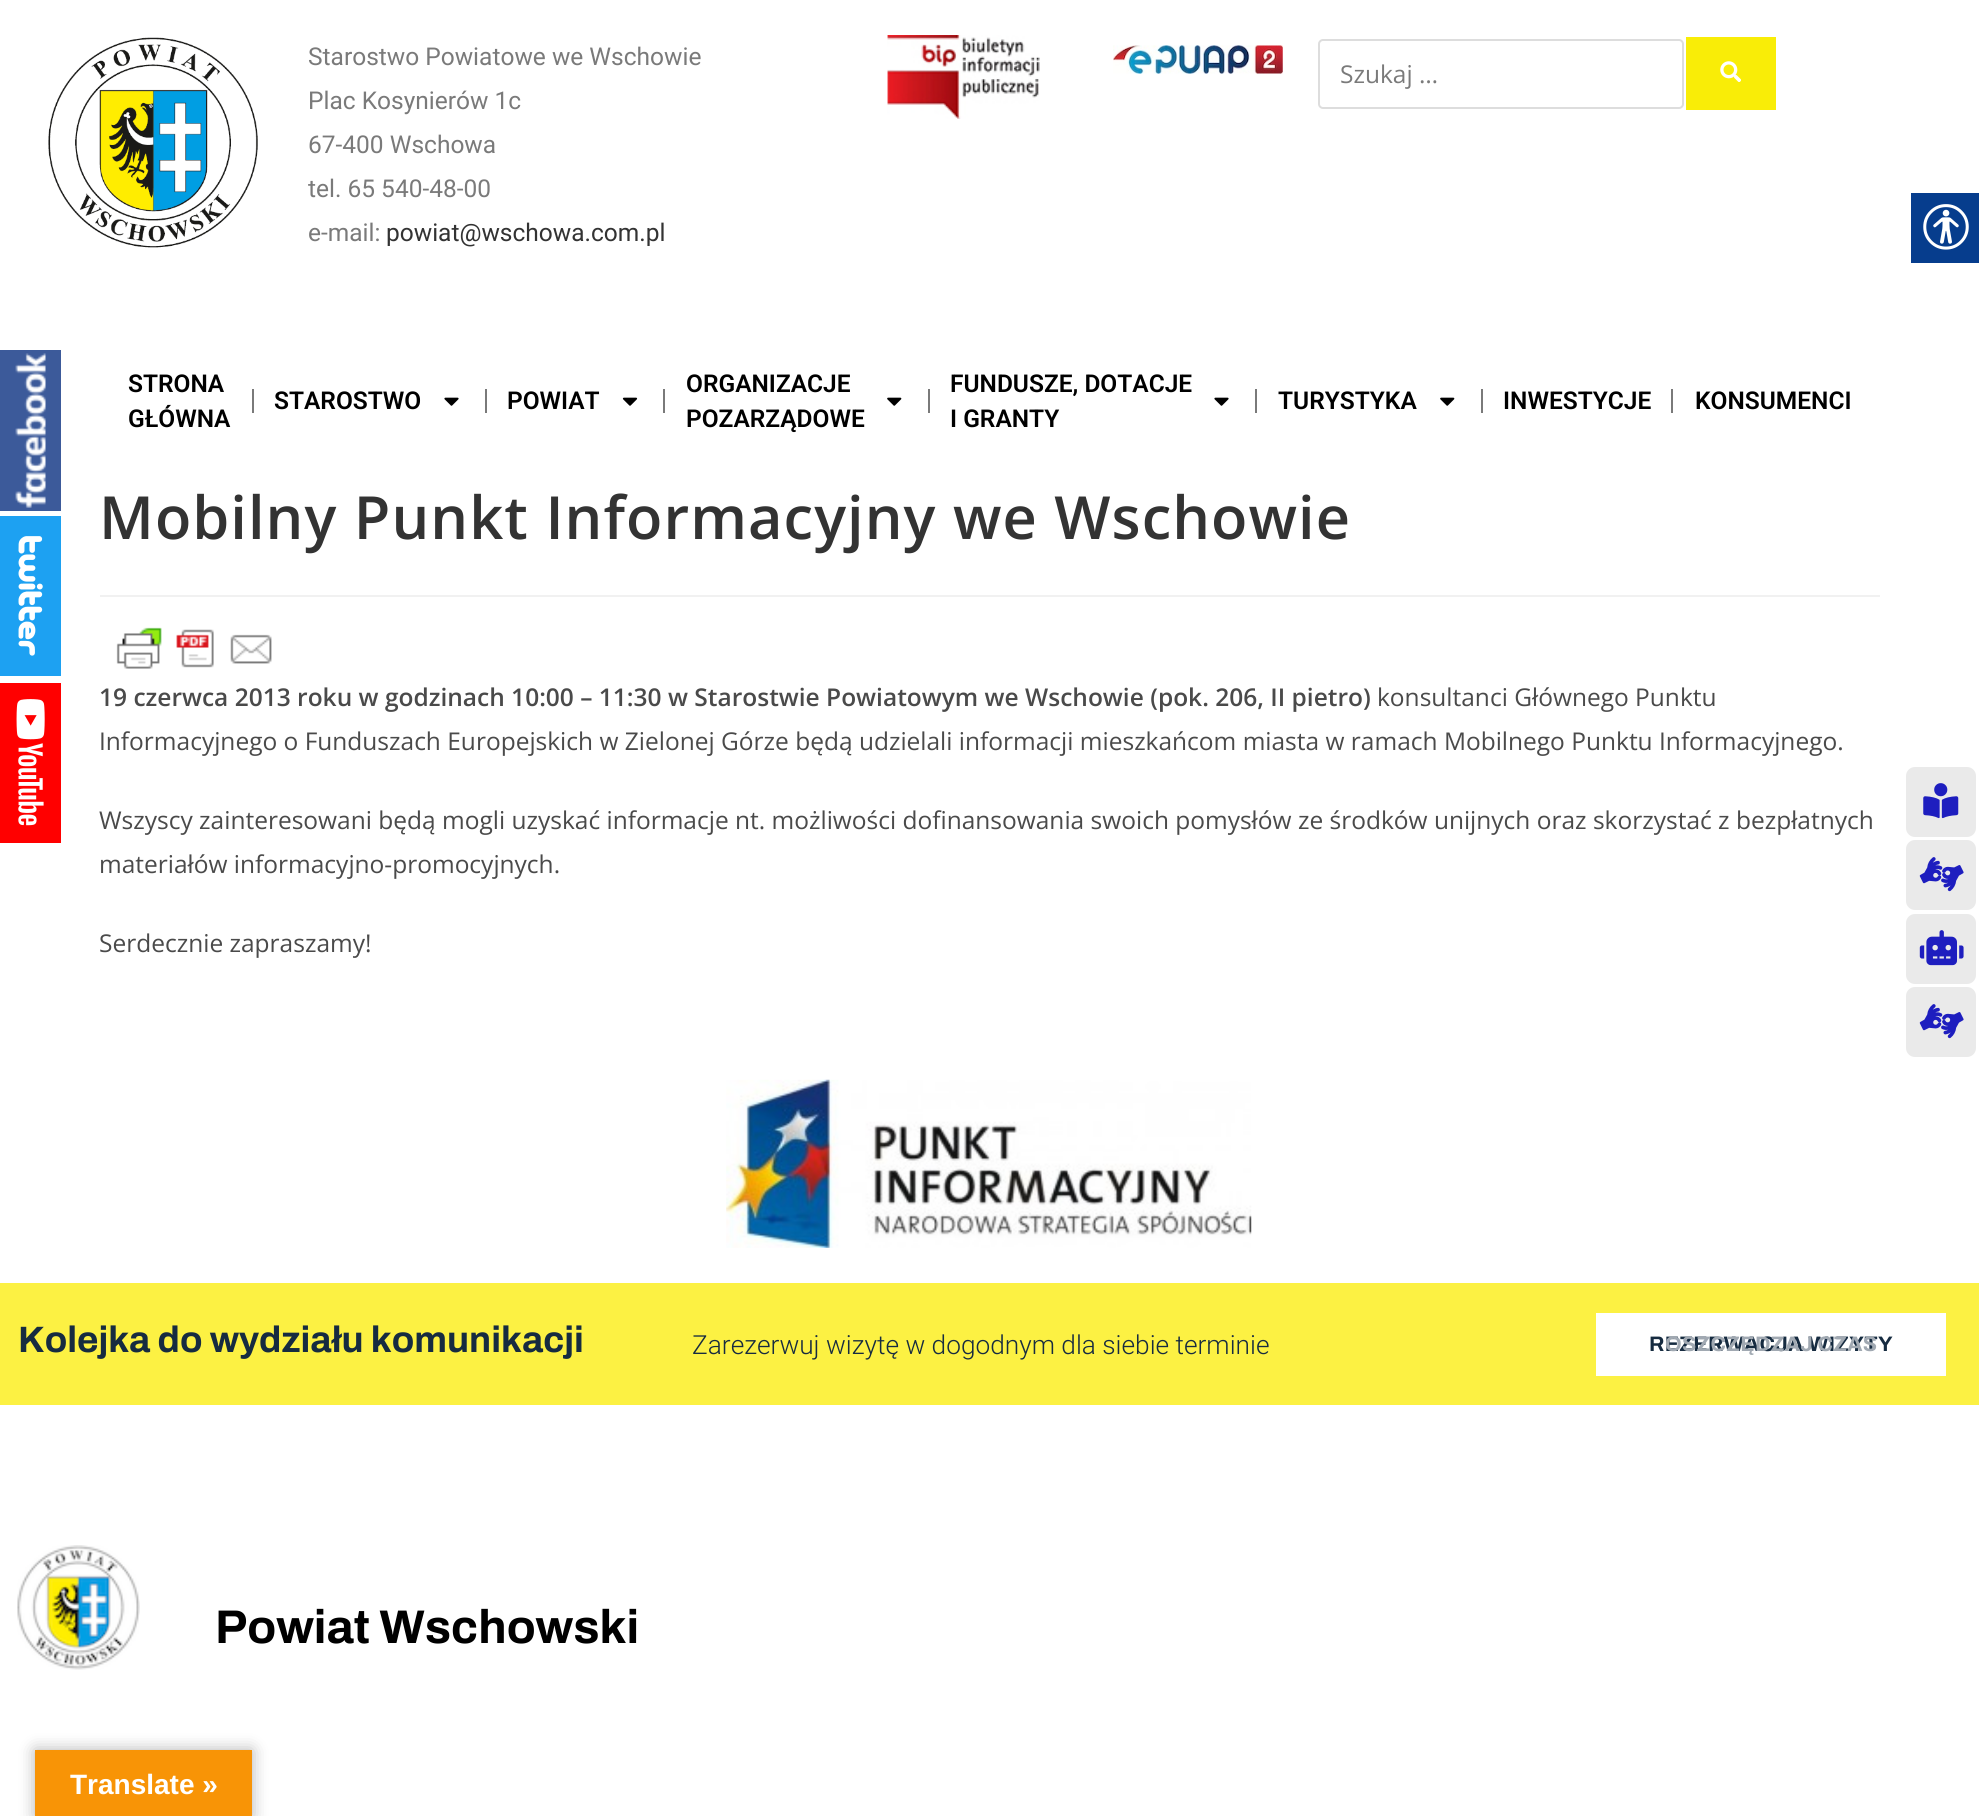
import math
import cairo

surface = cairo.ImageSurface(cairo.FORMAT_RGB24, 1979, 1816)
ctx = cairo.Context(surface)
options = cairo.FontOptions()
options.set_hint_metrics(cairo.HINT_METRICS_OFF)
options.set_hint_style(cairo.HINT_STYLE_NONE)
ctx.set_font_options(options)
ctx.set_miter_limit(4)


def set_color(code):
    ctx.set_source_rgb(*(v / 255 for v in bytes.fromhex(code[-6:])))


def draw_text(x, y, s, family, size, color, bold=False, italic=False):
    ctx.select_font_face(family, cairo.FONT_SLANT_ITALIC if italic else cairo.FONT_SLANT_NORMAL, cairo.FONT_WEIGHT_BOLD if bold else cairo.FONT_WEIGHT_NORMAL)
    ctx.set_font_size(size)
    set_color(color)
    ctx.move_to(x, y)
    ctx.show_text(s)


def draw_spaced(x, y, s, letter, word):
    ctx.move_to(x, y)
    for ch in s:
        ctx.show_text(ch)
        ctx.rel_move_to(letter + word * (ch == ' '), 0)


def fill_rect(x, y, w, h, color):
    set_color(color)
    ctx.rectangle(x, y, w, h)
    ctx.fill()


def rounded_rect(x, y, w, h, r):
    ctx.new_sub_path()
    for i, (u, v) in enumerate([(x + w - r, y + h - r), (x + r, y + h - r), (x + r, y + r), (x + w - r, y + r)]):
        ctx.arc(u, v, r, i * math.pi / 2, (i + 1) * math.pi / 2)
    ctx.close_path()


def draw_shadow(x, y, w, h, r, blur, alpha):
    ctx.push_group_with_content(cairo.CONTENT_ALPHA)
    ctx.set_operator(cairo.OPERATOR_SOURCE)
    for i in range(15, -16, -2):
        e = blur * i / 6
        if min(w, h) + 2 * e > 0:
            ctx.set_source_rgba(0, 0, 0, alpha * math.erfc((i - 1) / 8.5) / 2)
            rounded_rect(x - e, y - e, w + 2 * e, h + 2 * e, max(0, min(r + e + blur * .6, min(w, h) / 2 + e)))
            ctx.fill()
    ctx.mask(ctx.pop_group())


def draw_image(path, x, y, w, h):
    ctx.save()
    ctx.set_source_surface(cairo.ImageSurface.create_from_png(path), x, y)
    ctx.rectangle(x, y, w, h)
    ctx.fill()
    ctx.restore()


set_color("#ffffff")
ctx.paint()
draw_image("assets/img1.png", 48, 37, 210, 211)
draw_text(308, 65, "Starostwo Powiatowe we Wschowie", "Roboto", 24.5, "#7a7a7a")
draw_text(308, 109, "Plac Kosynierów 1c", "Roboto", 24.5, "#7a7a7a")
draw_text(308, 153, "67-400 Wschowa", "Roboto", 24.5, "#7a7a7a")
draw_text(308, 197, "tel. 65 540-48-00", "Roboto", 24.5, "#7a7a7a")
draw_text(308, 241, "e-mail:", "Roboto", 24.5, "#7a7a7a")
draw_text(386, 241, "powiat@wschowa.com.pl", "Roboto", 24.5, "#333333")
draw_image("assets/img2.png", 887, 35, 153, 84)
draw_image("assets/img3.png", 1113, 45, 170, 29)
rounded_rect(1319, 40, 364, 68, 4)
set_color("#dddddd")
ctx.stroke()
draw_text(1340, 83, "Szukaj …", "Open Sans", 24.5, "#7a7a7a")
fill_rect(1686, 37, 90, 73, "#f9ed07")
draw_image("assets/img4.png", 1720, 61, 21, 21)
draw_text(128, 392, "STRONA", "Roboto SemiBold", 24.5, "#000000")
draw_text(128, 427, "GŁÓWNA", "Roboto SemiBold", 24.5, "#000000")
fill_rect(252, 389, 2, 24, "#7a7a7a")
draw_text(274, 409, "STAROSTWO", "Roboto SemiBold", 24.5, "#000000")
draw_image("assets/img5.png", 444, 397, 15, 9)
fill_rect(485, 389, 2, 24, "#7a7a7a")
draw_text(507, 409, "POWIAT", "Roboto SemiBold", 24.5, "#000000")
draw_image("assets/img6.png", 622, 397, 16, 9)
fill_rect(663, 389, 2, 24, "#7a7a7a")
draw_text(686, 392, "ORGANIZACJE", "Roboto SemiBold", 24.5, "#000000")
draw_image("assets/img7.png", 887, 397, 15, 9)
draw_text(686, 427, "POZARZĄDOWE", "Roboto SemiBold", 24.5, "#000000")
fill_rect(928, 389, 2, 24, "#7a7a7a")
draw_text(950, 392, "FUNDUSZE, DOTACJE", "Roboto SemiBold", 24.5, "#000000")
draw_image("assets/img5.png", 1214, 397, 15, 9)
draw_text(950, 427, "I GRANTY", "Roboto SemiBold", 24.5, "#000000")
fill_rect(1255, 389, 2, 24, "#7a7a7a")
draw_text(1278, 409, "TURYSTYKA", "Roboto SemiBold", 24.5, "#000000")
draw_image("assets/img7.png", 1440, 397, 15, 9)
fill_rect(1481, 389, 2, 24, "#7a7a7a")
draw_text(1503, 409, "INWESTYCJE", "Roboto SemiBold", 24.5, "#000000")
fill_rect(1671, 389, 2, 24, "#7a7a7a")
draw_text(1695, 409, "KONSUMENCI", "Roboto SemiBold", 24.5, "#000000")
fill_rect(100, 595, 1780, 2, "#f1f1f1")
ctx.select_font_face("Open Sans SemiBold")
ctx.set_font_size(59.5)
set_color("#333333")
draw_spaced(99, 539, "Mobilny Punkt Informacyjny we Wschowie", 1.05, 0)
draw_image("assets/img8.png", 116, 627, 156, 42)
draw_text(99, 706, "19 czerwca 2013 roku w godzinach 10:00 – 11:30 w Starostwie Powiatowym we Wschowie (pok. 206, II pietro)", "Open Sans SemiBold", 24.5, "#4a4a4a")
draw_text(1377, 706, "konsultanci Głównego Punktu", "Open Sans", 24.5, "#4a4a4a")
draw_text(99, 750, "Informacyjnego o Funduszach Europejskich w Zielonej Górze będą udzielali informacji mieszkańcom miasta w ramach Mobilnego Punktu Informacyjnego.", "Open Sans", 24.5, "#4a4a4a")
draw_text(99, 829, "Wszyscy zainteresowani będą mogli uzyskać informacje nt. możliwości dofinansowania swoich pomysłów ze środków unijnych oraz skorzystać z bezpłatnych", "Open Sans", 24.5, "#4a4a4a")
draw_text(99, 873, "materiałów informacyjno-promocyjnych.", "Open Sans", 24.5, "#4a4a4a")
draw_text(99, 952, "Serdecznie zapraszamy!", "Open Sans", 24.5, "#4a4a4a")
draw_image("assets/img9.png", 726, 1079, 526, 169)
fill_rect(0, 1283, 1979, 122, "#fcf143")
draw_text(18, 1352, "Kolejka do wydziału komunikacji", "Archivo", 36.75, "#162b40", bold=True)
draw_text(692, 1354, "Zarezerwuj wizytę w dogodnym dla siebie terminie", "Roboto Light", 26.25, "#162b40")
fill_rect(1596, 1313, 350, 63, "#ffffff")
ctx.select_font_face("Archivo", cairo.FONT_SLANT_NORMAL, cairo.FONT_WEIGHT_BOLD)
ctx.set_font_size(21)
set_color("#162b40")
draw_spaced(1649, 1351, "REZERWACJA WIZYTY", 0.3, 0)
set_color("#a1a9b2")
draw_spaced(1665, 1351, "OSZCZĘDZAJ CZAS", 0.3, 0)
draw_image("assets/img10.png", 17, 1545, 123, 125)
draw_text(215, 1643, "Powiat Wschowski", "Archivo", 47.25, "#000000", bold=True)
fill_rect(1911, 193, 68, 70, "#063d8d")
draw_image("assets/img11.png", 1923, 204, 46, 46)
draw_image("assets/img12.png", 0, 350, 61, 161)
draw_image("assets/img13.png", 0, 516, 61, 160)
draw_image("assets/img14.png", 0, 683, 61, 160)
set_color("#eaeaea")
rounded_rect(1906, 767, 70, 70, 9)
ctx.fill()
draw_image("assets/img15.png", 1923, 783, 36, 36)
rounded_rect(1906, 840, 70, 70, 9)
ctx.fill()
draw_image("assets/img16.png", 1919, 857, 45, 35)
rounded_rect(1906, 914, 70, 70, 9)
ctx.fill()
draw_image("assets/img17.png", 1919, 930, 45, 36)
rounded_rect(1906, 987, 70, 70, 9)
ctx.fill()
draw_image("assets/img16.png", 1919, 1004, 45, 35)
set_color("#000000")
draw_shadow(35, 1750, 217, 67, 0, 8, 0.3)
fill_rect(35, 1750, 217, 66, "#f89406")
draw_text(70, 1794, "Translate »", "Liberation Sans", 28, "#ffffff", bold=True)
surface.write_to_png("output.png")
